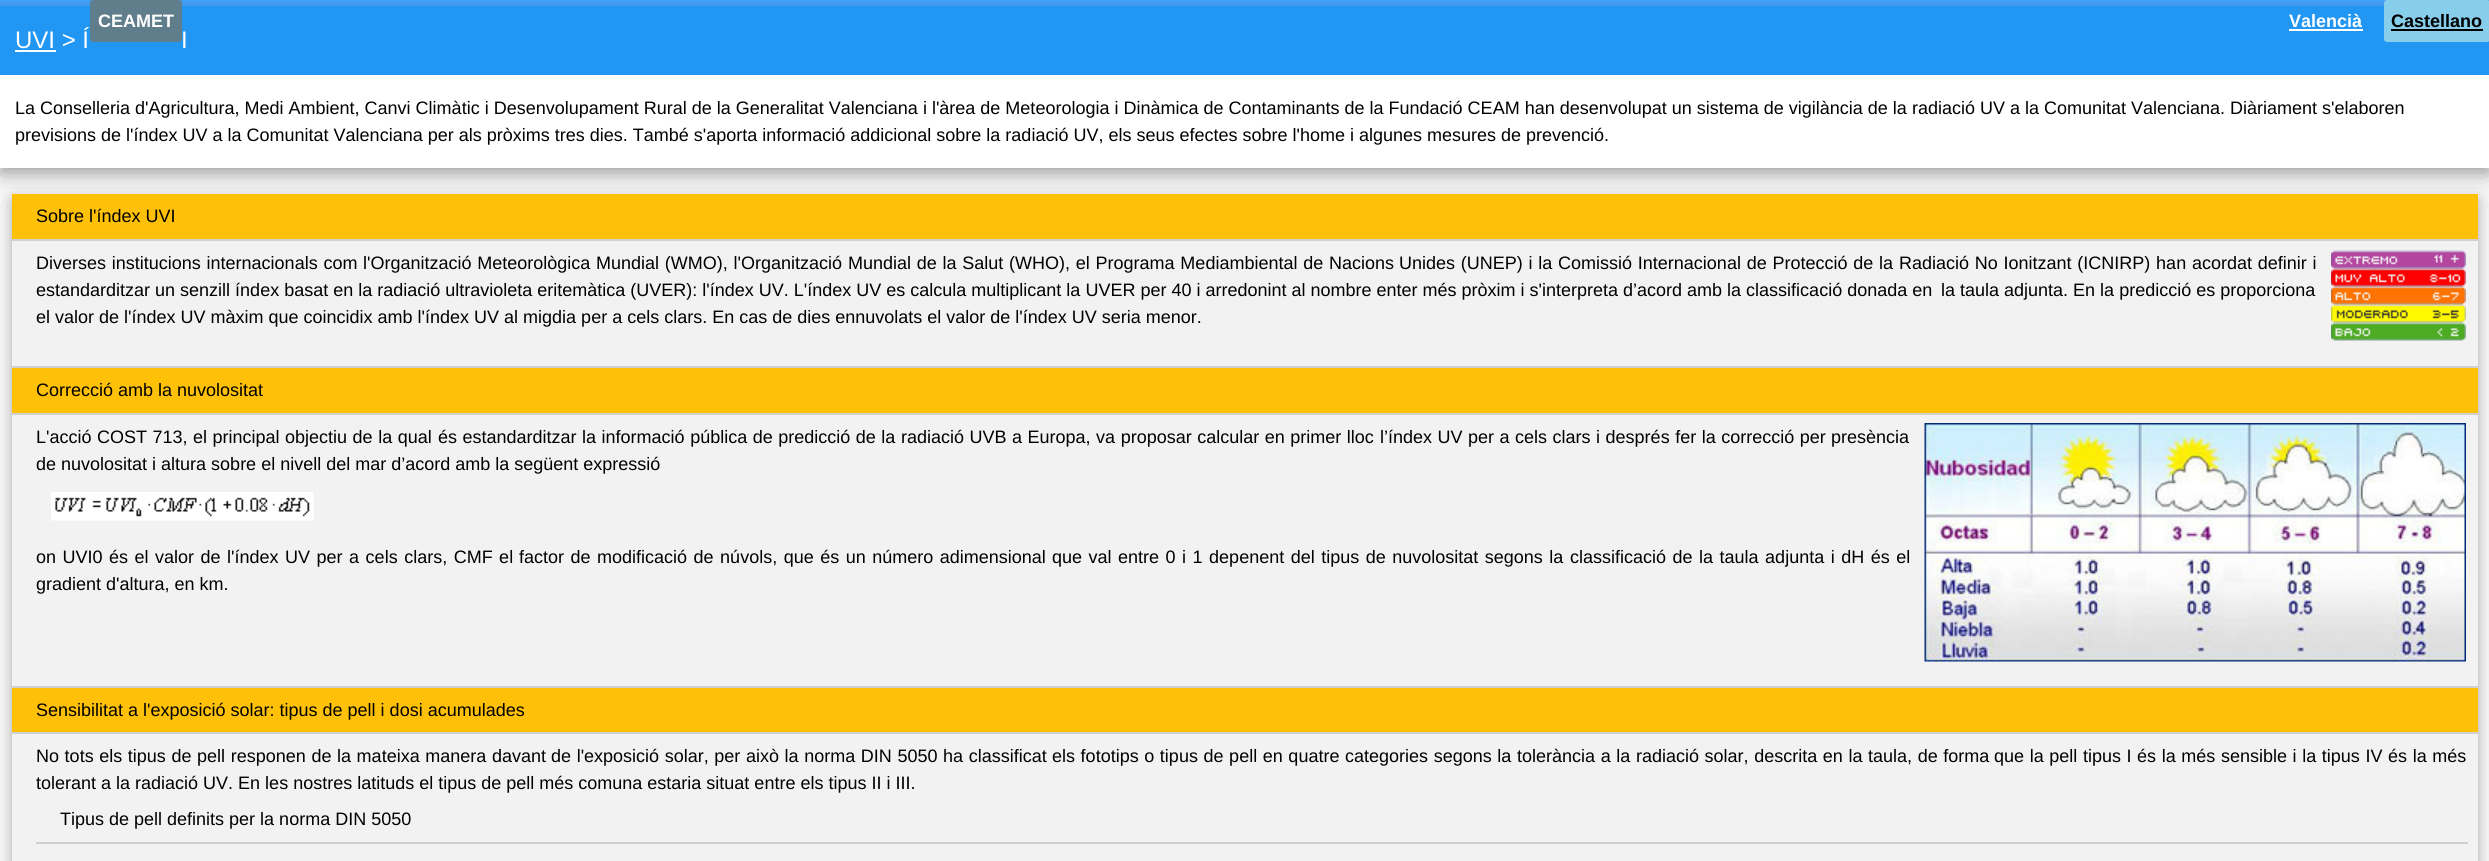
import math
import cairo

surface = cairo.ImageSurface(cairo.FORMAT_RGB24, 2489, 861)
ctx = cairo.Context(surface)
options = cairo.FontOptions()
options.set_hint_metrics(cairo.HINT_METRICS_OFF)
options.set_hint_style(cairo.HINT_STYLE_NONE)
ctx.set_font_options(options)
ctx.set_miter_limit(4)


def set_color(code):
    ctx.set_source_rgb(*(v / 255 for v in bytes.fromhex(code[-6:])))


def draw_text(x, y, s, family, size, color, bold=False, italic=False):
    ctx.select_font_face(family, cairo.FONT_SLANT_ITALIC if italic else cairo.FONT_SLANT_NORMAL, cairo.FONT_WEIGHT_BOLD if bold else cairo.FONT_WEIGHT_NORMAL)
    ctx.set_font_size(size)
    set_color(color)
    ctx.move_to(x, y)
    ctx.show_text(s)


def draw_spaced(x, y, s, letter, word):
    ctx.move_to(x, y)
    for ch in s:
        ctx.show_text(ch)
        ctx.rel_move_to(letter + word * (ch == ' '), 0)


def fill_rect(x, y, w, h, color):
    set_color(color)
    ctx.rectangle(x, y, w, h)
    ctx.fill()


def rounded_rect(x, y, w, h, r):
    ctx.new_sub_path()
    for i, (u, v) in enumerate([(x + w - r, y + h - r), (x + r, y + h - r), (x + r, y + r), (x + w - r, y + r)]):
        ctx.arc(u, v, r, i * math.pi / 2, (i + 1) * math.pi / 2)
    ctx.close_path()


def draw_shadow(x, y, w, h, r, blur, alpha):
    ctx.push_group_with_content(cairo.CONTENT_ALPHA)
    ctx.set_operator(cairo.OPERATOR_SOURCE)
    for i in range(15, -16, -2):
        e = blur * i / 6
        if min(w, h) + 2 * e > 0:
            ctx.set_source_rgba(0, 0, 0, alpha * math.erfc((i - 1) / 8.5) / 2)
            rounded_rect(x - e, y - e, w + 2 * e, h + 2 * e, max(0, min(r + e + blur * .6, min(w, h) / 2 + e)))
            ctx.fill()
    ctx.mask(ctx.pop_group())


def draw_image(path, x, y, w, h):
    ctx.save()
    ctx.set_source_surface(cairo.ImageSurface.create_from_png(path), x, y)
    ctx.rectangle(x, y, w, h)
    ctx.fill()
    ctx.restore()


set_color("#ffffff")
ctx.paint()
fill_rect(0, 0, 2489, 6, "#47a3ff")
ctx.save()
ctx.set_fill_rule(cairo.FILL_RULE_EVEN_ODD)
ctx.new_path()
ctx.move_to(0, 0)
ctx.line_to(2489, 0)
ctx.line_to(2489, 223)
ctx.line_to(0, 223)
ctx.close_path()
ctx.move_to(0, 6)
ctx.line_to(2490, 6)
ctx.line_to(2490, 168)
ctx.line_to(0, 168)
ctx.close_path()
ctx.clip()
set_color("#000000")
draw_shadow(0, 15, 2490, 162, 0, 15, 0.19)
ctx.restore()
ctx.save()
ctx.set_fill_rule(cairo.FILL_RULE_EVEN_ODD)
ctx.new_path()
ctx.move_to(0, 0)
ctx.line_to(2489, 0)
ctx.line_to(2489, 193)
ctx.line_to(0, 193)
ctx.close_path()
ctx.move_to(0, 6)
ctx.line_to(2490, 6)
ctx.line_to(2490, 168)
ctx.line_to(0, 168)
ctx.close_path()
ctx.clip()
set_color("#000000")
draw_shadow(0, 12, 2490, 162, 0, 6, 0.2)
ctx.restore()
fill_rect(0, 6, 2489, 69, "#2196f3")
set_color("#607d8b")
rounded_rect(90, 0, 92, 42, 3)
ctx.fill()
draw_text(98, 27, "CEAMET", "Liberation Sans", 18, "#ffffff", bold=True)
draw_text(2289, 27, "Valencià", "Liberation Sans", 18, "#ffffff", bold=True)
fill_rect(2289, 29, 74, 2, "#ffffff")
set_color("#87ceeb")
rounded_rect(2384, 0, 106, 42, 3)
ctx.fill()
draw_text(2391, 27, "Castellano", "Liberation Sans", 18, "#000000", bold=True)
fill_rect(2391, 29, 92, 2, "#000000")
draw_text(15, 48, "UVI > Í", "Liberation Sans", 24, "#ffffff")
fill_rect(15, 50, 41, 2, "#ffffff")
draw_text(181, 48, "I", "Liberation Sans", 24, "#ffffff")
draw_text(15, 114, "La Conselleria d'Agricultura, Medi Ambient, Canvi Climàtic i Desenvolupament Rural de la Generalitat Valenciana i l'àrea de Meteorologia i Dinàmica de Contaminants de la Fundació CEAM han desenvolupat un sistema de vigilància de la radiació UV a la Comunitat Valenciana. Diàriament s'elaboren", "Liberation Sans", 18, "#000000")
draw_text(15, 141, "previsions de l'índex UV a la Comunitat Valenciana per als pròxims tres dies. També s'aporta informació addicional sobre la radiació UV, els seus efectes sobre l'home i algunes mesures de prevenció.", "Liberation Sans", 18, "#000000")
set_color("#000000")
draw_shadow(12, 203, 2466, 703, 0, 15, 0.19)
draw_shadow(12, 200, 2466, 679, 0, 6, 0.2)
fill_rect(12, 194, 2466, 45, "#ffc107")
fill_rect(12, 239, 2466, 2, "#d0d0d0")
draw_text(36, 222, "Sobre l'índex UVI", "Liberation Sans", 18, "#000000")
fill_rect(12, 241, 2466, 125, "#f2f2f2")
fill_rect(12, 366, 2466, 2, "#d0d0d0")
set_color("#000000")
draw_spaced(36, 269, "Diverses institucions internacionals com", 0, 0.75)
draw_spaced(363, 269, "l'Organització Meteorològica Mundial (WMO), l'Organització", 0, 0.75)
draw_spaced(848, 269, "Mundial de la Salut (WHO), el Programa Mediambiental de Nacions", 0, 0.75)
draw_spaced(1399, 269, "Unides (UNEP) i la Comissió Internacional de Protecció de la", 0, 0.75)
draw_spaced(1899, 269, "Radiació No Ionitzant (ICNIRP) han acordat definir i", 0, 0.75)
draw_image("assets/img1.png", 2331, 250, 135, 91)
draw_text(36, 296, "estandarditzar un senzill índex basat en la radiació ultravioleta eritemàtica (UVER): l'índex UV. L'índex UV es calcula multiplicant la UVER per 40 i arredonint al nombre enter més pròxim i s'interpreta d’acord amb la classificació donada en", "Liberation Sans", 18, "#000000")
draw_text(1941, 296, "la taula adjunta. En la predicció es proporciona", "Liberation Sans", 18, "#000000")
draw_text(36, 323, "el valor de l'índex UV màxim que coincidix amb l'índex UV al migdia per a cels clars. En cas de dies ennuvolats el valor de l'índex UV seria menor.", "Liberation Sans", 18, "#000000")
fill_rect(12, 368, 2466, 45, "#ffc107")
fill_rect(12, 413, 2466, 2, "#d0d0d0")
draw_text(36, 396, "Correcció amb la nuvolositat", "Liberation Sans", 18, "#000000")
fill_rect(12, 415, 2466, 271, "#f2f2f2")
fill_rect(12, 686, 2466, 2, "#d0d0d0")
set_color("#000000")
draw_spaced(36, 443, "L'acció COST 713, el principal objectiu de la qual", 0, 0.5)
draw_spaced(438, 443, "és estandarditzar la informació pública de predicció de la", 0, 0.5)
draw_spaced(901, 443, "radiació UVB a Europa, va proposar calcular en primer lloc", 0, 0.5)
draw_spaced(1380, 443, "l’índex UV per a cels clars i després fer la correcció per", 0, 0.5)
draw_text(1831, 443, "presència", "Liberation Sans", 18, "#000000")
draw_image("assets/img2.png", 1924, 423, 542, 239)
draw_text(36, 470, "de nuvolositat i altura sobre el nivell del mar d’acord amb la següent expressió", "Liberation Sans", 18, "#000000")
draw_image("assets/img3.png", 51, 492, 263, 29)
draw_spaced(36, 563, "on UVI0 és el valor de l'índex UV per a cels clars, CMF el", 0, 1.5)
draw_spaced(519, 563, "factor de modificació de núvols, que és un número adimensional", 0, 1.5)
draw_spaced(1052, 563, "que val entre 0 i 1 depenent del tipus de nuvolositat segons la", 0, 1.5)
draw_spaced(1570, 563, "classificació de la taula adjunta i dH és el", 0, 1.5)
draw_text(36, 590, "gradient d'altura, en km.", "Liberation Sans", 18, "#000000")
fill_rect(12, 688, 2466, 44, "#ffc107")
fill_rect(12, 732, 2466, 2, "#d0d0d0")
draw_text(36, 716, "Sensibilitat a l'exposició solar: tipus de pell i dosi acumulades", "Liberation Sans", 18, "#000000")
fill_rect(12, 734, 2466, 127, "#f2f2f2")
set_color("#000000")
draw_spaced(36, 762, "No tots els tipus de pell responen de la mateixa manera davant", 0, 0.6)
draw_spaced(551, 762, "de l'exposició solar, per això la norma DIN 5050 ha classificat", 0, 0.6)
draw_spaced(1052, 762, "els fototips o tipus de pell en quatre categories segons la", 0, 0.6)
draw_spaced(1517, 762, "tolerància a la radiació solar, descrita en la taula, de forma", 0, 0.6)
draw_spaced(1994, 762, "que la pell tipus I és la més sensible i la tipus IV és la més", 0, 0.6)
draw_text(36, 789, "tolerant a la radiació UV. En les nostres latituds el tipus de pell més comuna estaria situat entre els tipus II i III.", "Liberation Sans", 18, "#000000")
fill_rect(36, 842, 2432, 2, "#d0d0d0")
draw_text(60, 825, "Tipus de pell definits per la norma DIN 5050", "Liberation Sans", 18, "#000000")
surface.write_to_png("output.png")
